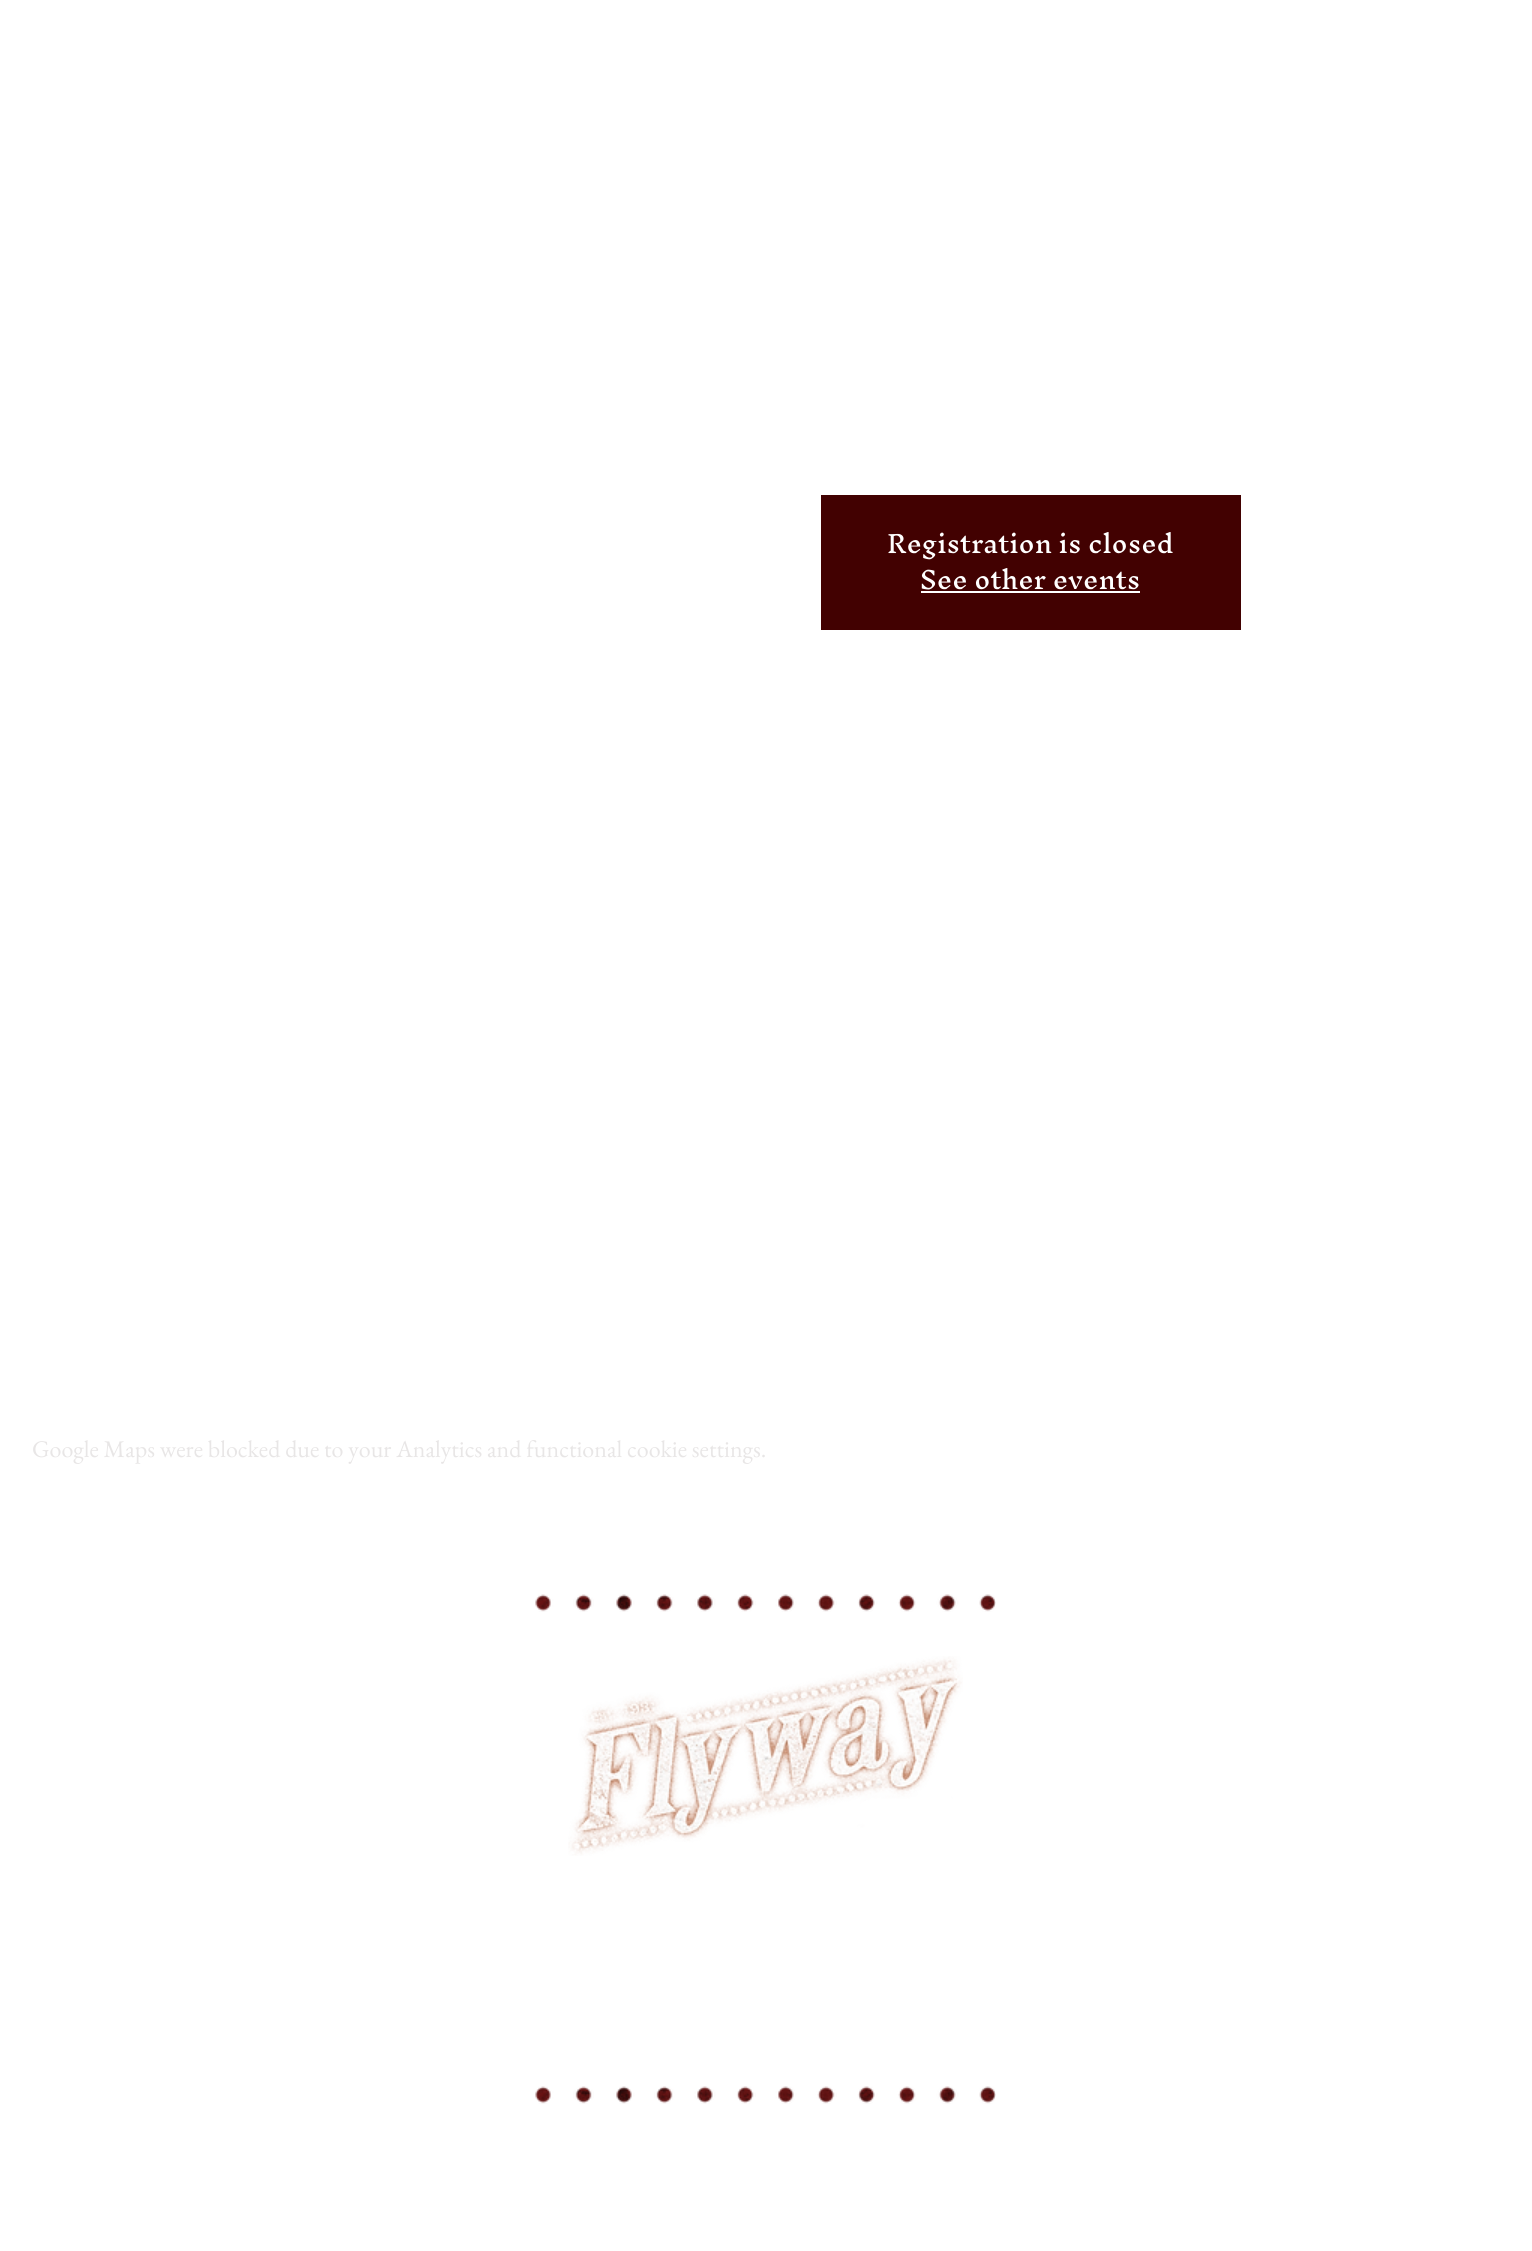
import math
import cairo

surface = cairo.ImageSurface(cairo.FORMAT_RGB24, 1532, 2251)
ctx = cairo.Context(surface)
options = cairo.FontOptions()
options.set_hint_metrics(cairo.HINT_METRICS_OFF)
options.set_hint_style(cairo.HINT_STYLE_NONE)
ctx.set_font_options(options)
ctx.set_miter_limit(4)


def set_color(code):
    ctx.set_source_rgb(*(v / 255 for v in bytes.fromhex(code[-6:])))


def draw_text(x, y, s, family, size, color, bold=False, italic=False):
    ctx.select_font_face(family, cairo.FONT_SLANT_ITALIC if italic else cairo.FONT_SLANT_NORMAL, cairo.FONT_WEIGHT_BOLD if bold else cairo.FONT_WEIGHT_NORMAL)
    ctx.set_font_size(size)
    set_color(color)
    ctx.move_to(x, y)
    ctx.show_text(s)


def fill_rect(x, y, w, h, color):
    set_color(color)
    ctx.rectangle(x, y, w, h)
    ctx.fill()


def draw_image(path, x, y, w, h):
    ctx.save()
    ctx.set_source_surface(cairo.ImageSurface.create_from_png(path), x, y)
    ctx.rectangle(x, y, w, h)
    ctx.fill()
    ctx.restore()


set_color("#ffffff")
ctx.paint()
fill_rect(821, 495, 420, 135, "#420101")
draw_text(887, 553, "Registration is closed", "Inknut Antiqua", 24, "#ffffff")
draw_text(920, 589, "See other events", "Inknut Antiqua", 24, "#ffffff")
fill_rect(921, 591, 219, 2, "#ffffff")
draw_text(32, 1457, "Google Maps were blocked due to your Analytics and functional cookie settings.", "EB Garamond", 24, "#e8e6e6")
draw_image("assets/img1.png", 535, 1594, 461, 18)
draw_image("assets/img2.png", 568, 1656, 395, 200)
draw_image("assets/img1.png", 535, 2086, 461, 18)
surface.write_to_png("output.png")
